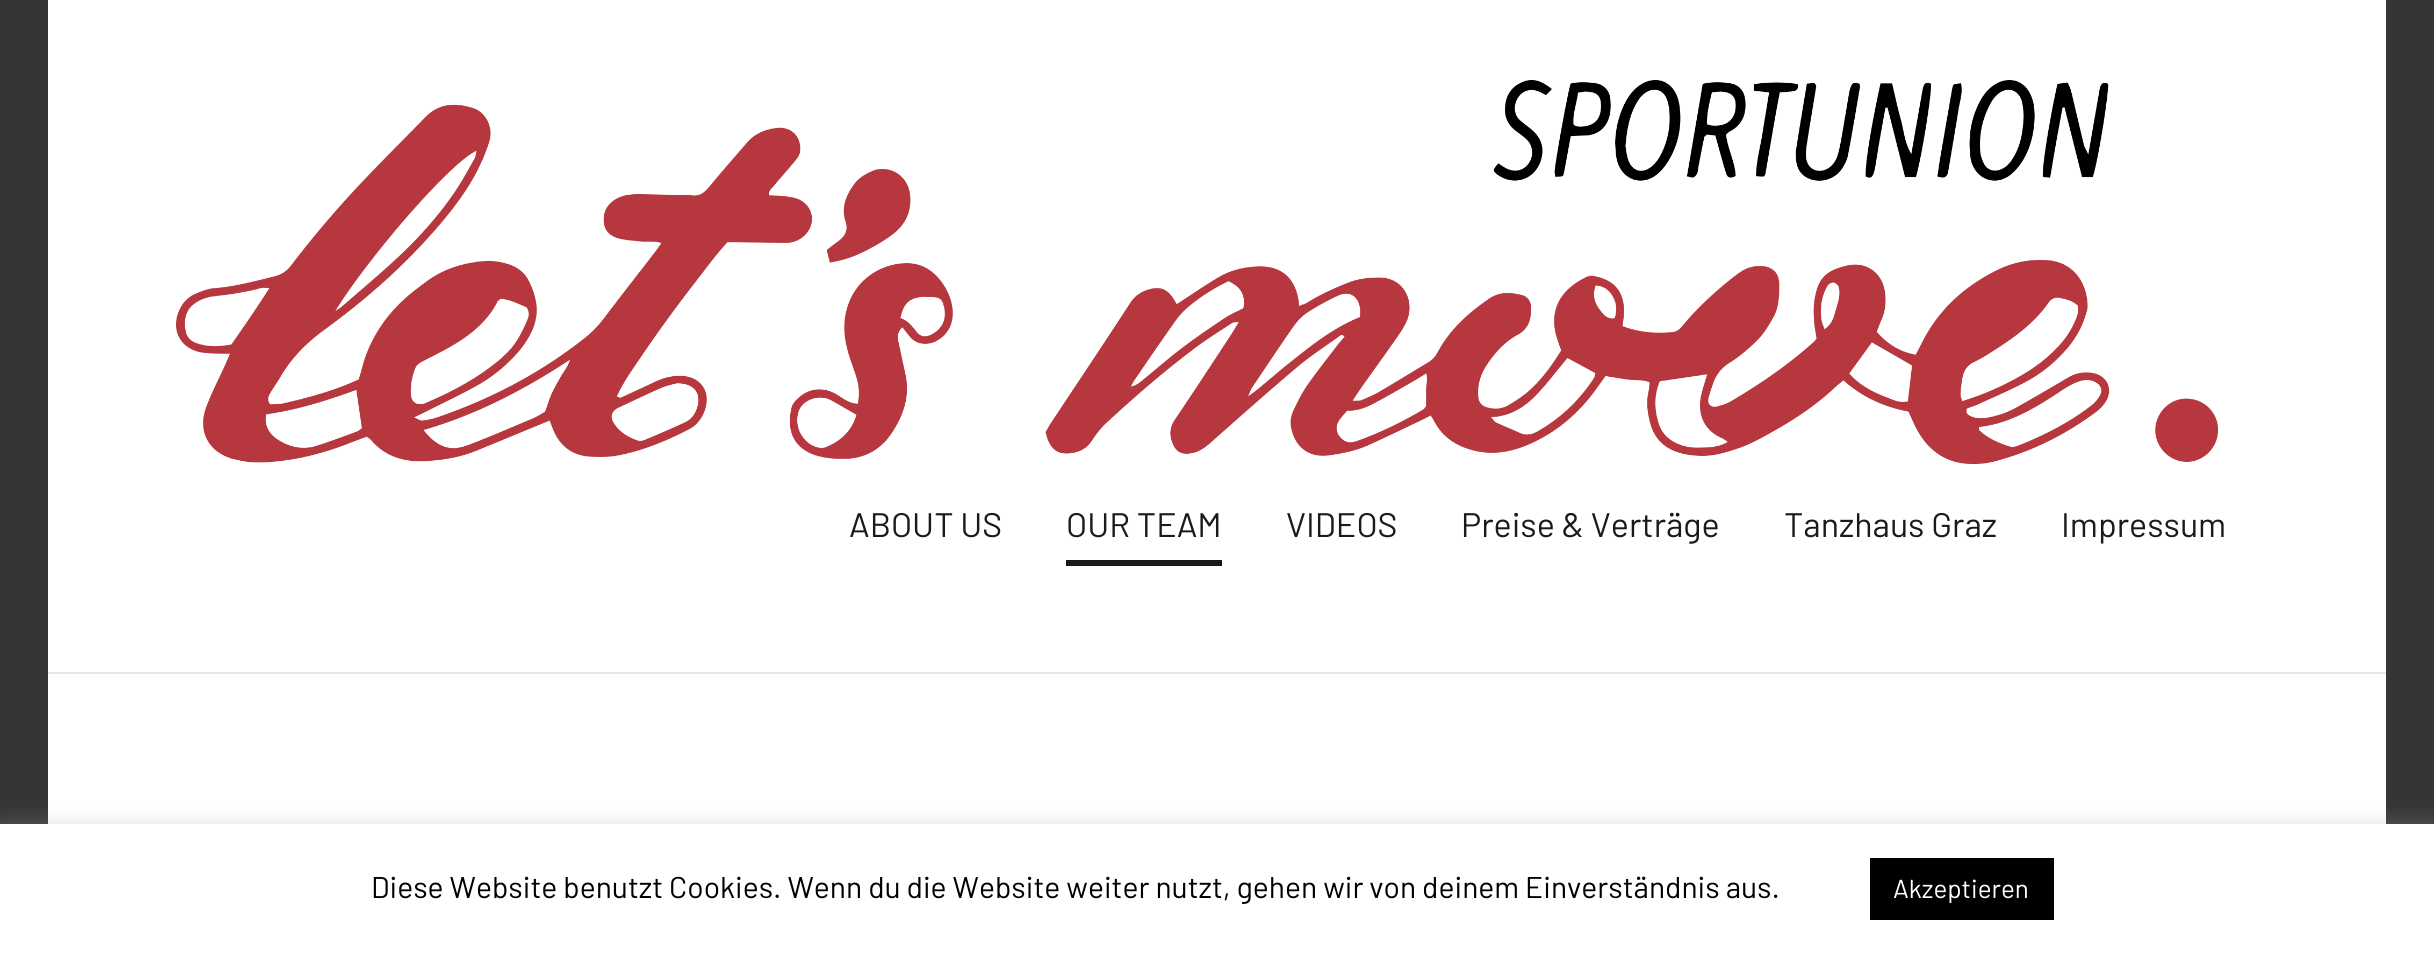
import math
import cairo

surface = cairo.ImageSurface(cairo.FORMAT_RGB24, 2434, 954)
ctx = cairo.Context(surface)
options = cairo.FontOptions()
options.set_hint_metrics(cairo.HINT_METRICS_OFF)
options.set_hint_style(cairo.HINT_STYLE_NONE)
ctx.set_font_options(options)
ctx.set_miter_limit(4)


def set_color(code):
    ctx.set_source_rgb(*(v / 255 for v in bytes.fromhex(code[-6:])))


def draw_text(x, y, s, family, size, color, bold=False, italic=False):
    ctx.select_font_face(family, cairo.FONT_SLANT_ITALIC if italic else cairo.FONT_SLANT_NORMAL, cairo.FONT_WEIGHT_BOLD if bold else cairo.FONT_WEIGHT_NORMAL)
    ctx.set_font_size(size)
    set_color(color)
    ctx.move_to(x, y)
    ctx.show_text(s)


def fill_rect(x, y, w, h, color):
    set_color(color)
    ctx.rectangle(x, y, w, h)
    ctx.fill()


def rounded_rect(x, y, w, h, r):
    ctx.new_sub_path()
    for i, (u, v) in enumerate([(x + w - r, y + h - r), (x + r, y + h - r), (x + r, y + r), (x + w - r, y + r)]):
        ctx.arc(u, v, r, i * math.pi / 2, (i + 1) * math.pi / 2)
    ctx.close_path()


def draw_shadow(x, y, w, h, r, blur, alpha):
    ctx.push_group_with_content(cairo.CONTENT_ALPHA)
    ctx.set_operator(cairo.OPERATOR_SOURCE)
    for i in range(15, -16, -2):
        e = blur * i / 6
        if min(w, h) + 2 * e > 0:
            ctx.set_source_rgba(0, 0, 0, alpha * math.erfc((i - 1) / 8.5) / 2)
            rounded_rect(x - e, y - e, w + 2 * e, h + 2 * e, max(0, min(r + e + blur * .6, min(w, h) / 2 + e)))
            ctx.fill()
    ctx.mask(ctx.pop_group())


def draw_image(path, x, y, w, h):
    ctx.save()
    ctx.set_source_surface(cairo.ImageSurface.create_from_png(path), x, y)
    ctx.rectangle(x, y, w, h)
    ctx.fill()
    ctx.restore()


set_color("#353535")
ctx.paint()
fill_rect(48, 0, 2338, 824, "#ffffff")
fill_rect(48, 672, 2338, 2, "#e6e6e6")
draw_image("assets/img1.png", 176, 80, 2042, 384)
draw_text(849, 537, "ABOUT US", "Barlow", 34, "#1a1a1a")
fill_rect(1066, 560, 156, 6, "#1a1a1a")
draw_text(1066, 537, "OUR TEAM", "Barlow", 34, "#1a1a1a")
draw_text(1286, 537, "VIDEOS", "Barlow", 34, "#1a1a1a")
draw_text(1461, 537, "Preise & Verträge", "Barlow", 34, "#1a1a1a")
draw_text(1784, 537, "Tanzhaus Graz", "Barlow", 34, "#1a1a1a")
draw_text(2061, 537, "Impressum", "Barlow", 34, "#1a1a1a")
set_color("#acabab")
draw_shadow(0, 822, 2434, 130, 0, 10, 0.3)
fill_rect(0, 824, 2434, 130, "#ffffff")
draw_text(371, 898, "Diese Website benutzt Cookies. Wenn du die Website weiter nutzt, gehen wir von deinem Einverständnis aus.", "Barlow", 30, "#000000")
fill_rect(1870, 858, 184, 62, "#000000")
draw_text(1893, 898, "Akzeptieren", "Barlow", 26, "#ffffff")
surface.write_to_png("output.png")
